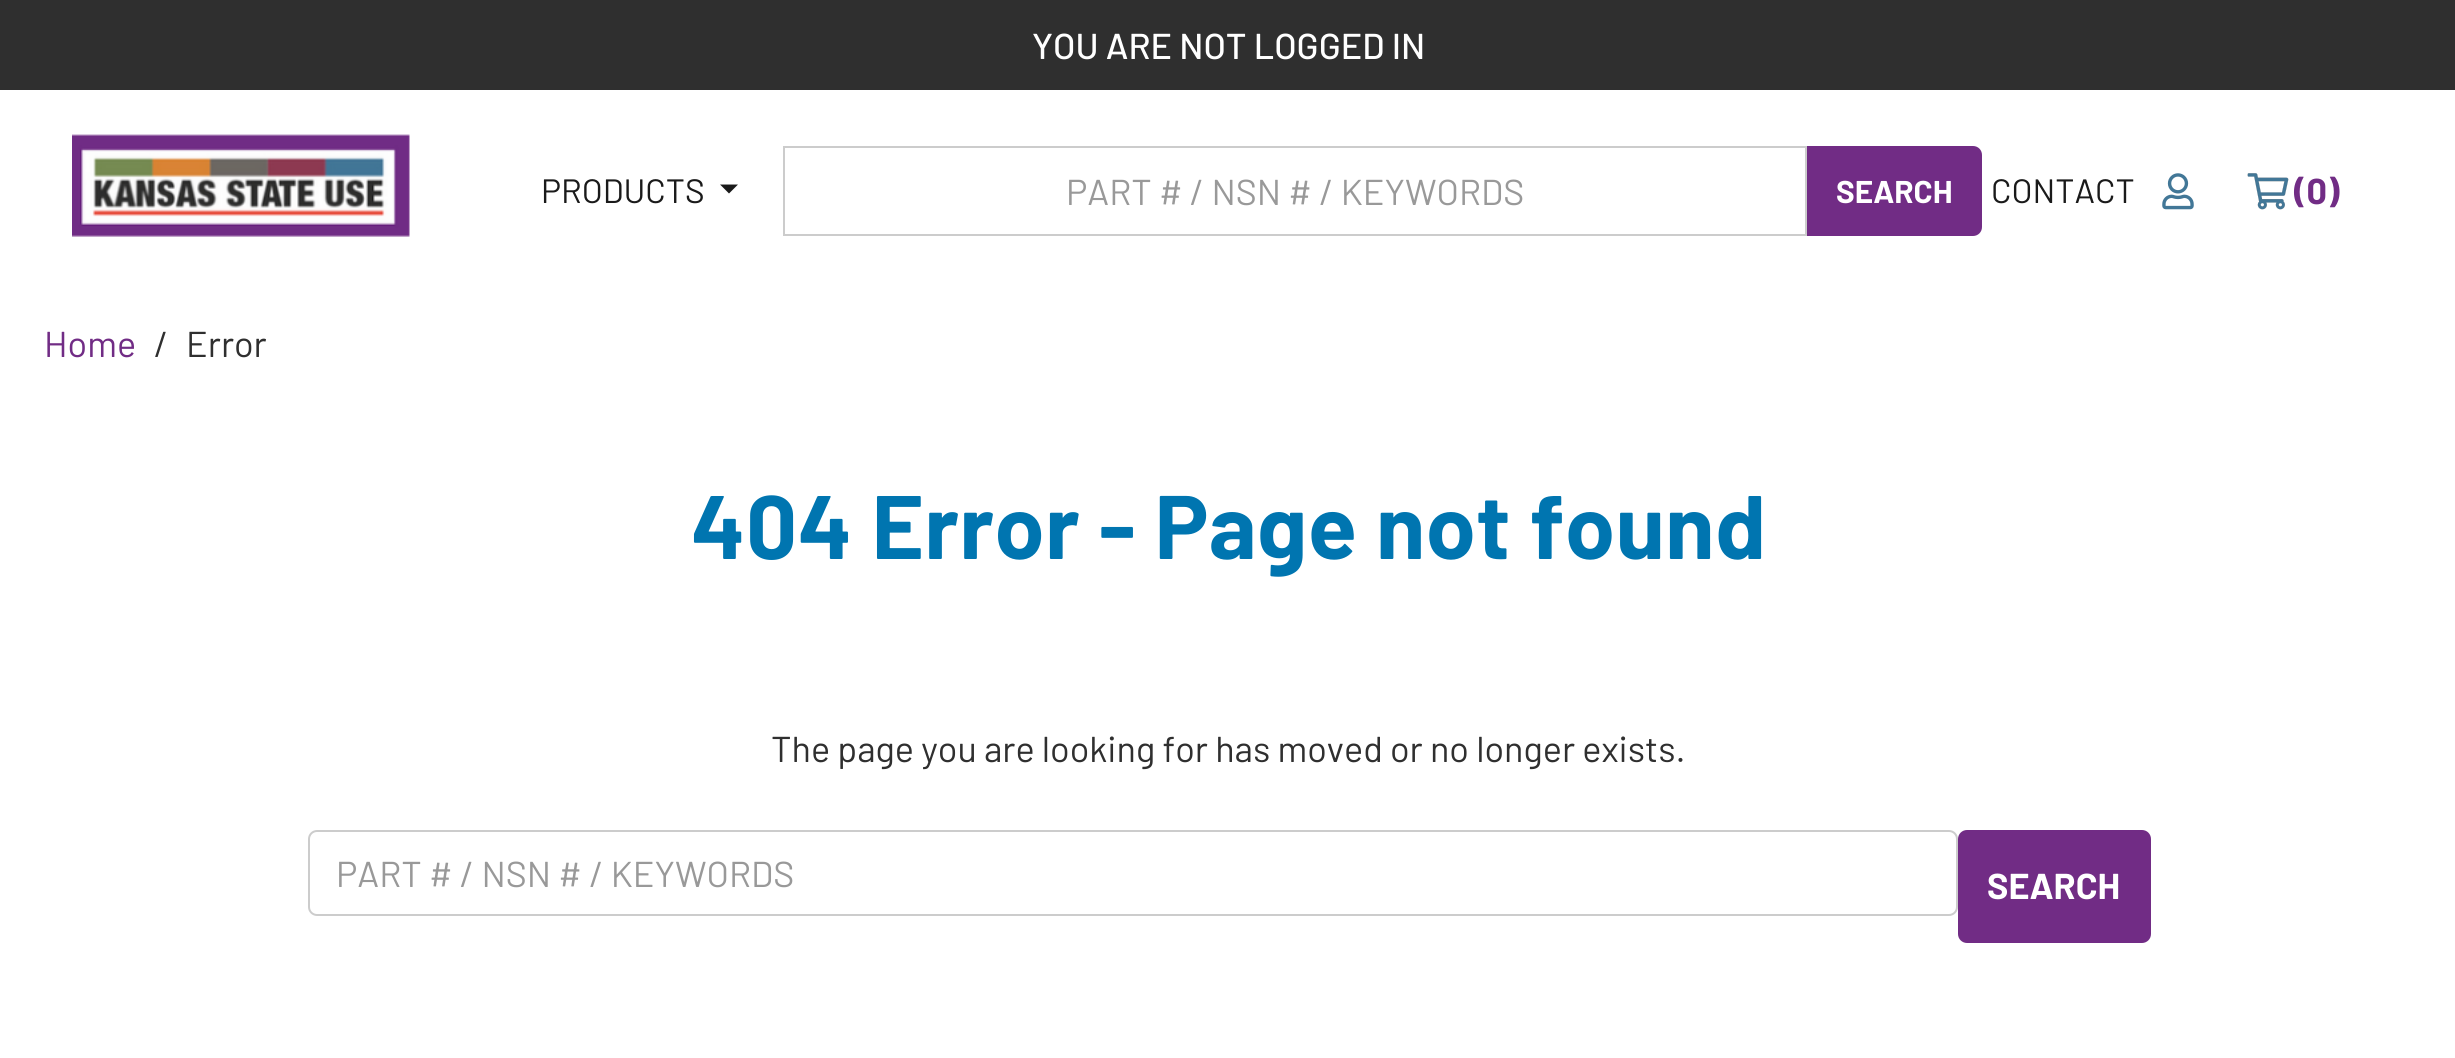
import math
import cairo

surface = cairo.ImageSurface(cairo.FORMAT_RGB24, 2455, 1058)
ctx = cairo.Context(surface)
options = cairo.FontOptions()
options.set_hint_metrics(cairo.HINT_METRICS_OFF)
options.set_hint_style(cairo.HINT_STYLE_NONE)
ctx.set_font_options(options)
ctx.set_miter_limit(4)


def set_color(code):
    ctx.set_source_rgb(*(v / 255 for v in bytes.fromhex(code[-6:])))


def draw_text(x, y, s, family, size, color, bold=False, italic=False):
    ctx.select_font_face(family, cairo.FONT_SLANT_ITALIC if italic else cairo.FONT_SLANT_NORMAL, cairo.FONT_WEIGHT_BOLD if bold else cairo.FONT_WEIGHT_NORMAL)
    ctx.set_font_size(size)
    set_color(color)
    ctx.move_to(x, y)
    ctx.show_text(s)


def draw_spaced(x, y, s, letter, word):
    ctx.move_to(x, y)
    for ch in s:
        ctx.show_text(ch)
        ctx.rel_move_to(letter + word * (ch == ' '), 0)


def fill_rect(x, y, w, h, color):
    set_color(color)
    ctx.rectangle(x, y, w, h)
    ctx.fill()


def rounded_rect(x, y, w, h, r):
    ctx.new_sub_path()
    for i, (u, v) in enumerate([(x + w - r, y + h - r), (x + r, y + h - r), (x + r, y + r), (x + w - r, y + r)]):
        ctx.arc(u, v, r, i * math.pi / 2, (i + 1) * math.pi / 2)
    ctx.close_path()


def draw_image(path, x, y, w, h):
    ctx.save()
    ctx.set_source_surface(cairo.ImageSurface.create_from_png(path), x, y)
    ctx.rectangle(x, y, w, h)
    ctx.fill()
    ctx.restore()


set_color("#ffffff")
ctx.paint()
fill_rect(0, 0, 2455, 90, "#2f2f2f")
draw_text(1032, 59, "YOU ARE NOT LOGGED IN", "Barlow Medium", 36, "#ffffff")
draw_image("assets/img1.png", 72, 134, 338, 103)
draw_text(541, 203, "PRODUCTS", "Barlow", 33.75, "#1a1a1a")
ctx.new_path()
ctx.move_to(720, 184.5)
ctx.line_to(738, 184.5)
ctx.line_to(729, 193.5)
ctx.close_path()
ctx.fill()
ctx.rectangle(784, 147, 1022, 88)
set_color("#cccccc")
ctx.stroke()
draw_text(1066, 205, "PART # / NSN # / KEYWORDS", "Barlow", 36, "#999999")
set_color("#712c85")
ctx.new_path()
ctx.move_to(1808, 147)
ctx.line_to(1973, 147)
ctx.curve_to(1977.5, 147, 1981, 150.5, 1981, 155)
ctx.line_to(1981, 227)
ctx.curve_to(1981, 231.5, 1977.5, 235, 1973, 235)
ctx.line_to(1808, 235)
ctx.close_path()
ctx.fill_preserve()
ctx.stroke()
draw_text(1836, 203, "SEARCH", "Barlow", 31.5, "#ffffff", bold=True)
draw_text(1991, 203, "CONTACT", "Barlow", 33.75, "#1a1a1a")
draw_image("assets/img2.png", 2162, 173, 32, 37)
draw_image("assets/img3.png", 2247, 173, 42, 37)
draw_text(2294, 204, "(0)", "Barlow", 36, "#712c85", bold=True)
draw_text(44, 357, "Home", "Barlow", 36, "#712c85")
draw_text(154, 357, "/", "Barlow", 36, "#2f2f2f")
draw_text(186, 357, "Error", "Barlow", 36, "#2f2f2f")
ctx.select_font_face("Barlow", cairo.FONT_SLANT_NORMAL, cairo.FONT_WEIGHT_BOLD)
ctx.set_font_size(90)
set_color("#0075b0")
draw_spaced(691, 559, "404 Error - Page not found", 0.55, 0)
draw_text(771, 762, "The page you are looking for has moved or no longer exists.", "Barlow", 36, "#2f2f2f")
rounded_rect(309, 831, 1648, 84, 8)
set_color("#cccccc")
ctx.stroke()
draw_text(336, 887, "PART # / NSN # / KEYWORDS", "Barlow", 36, "#999999")
set_color("#712c85")
rounded_rect(1959, 831, 191, 111, 8)
ctx.fill_preserve()
ctx.stroke()
draw_text(1987, 899, "SEARCH", "Barlow", 36, "#ffffff", bold=True)
surface.write_to_png("output.png")
